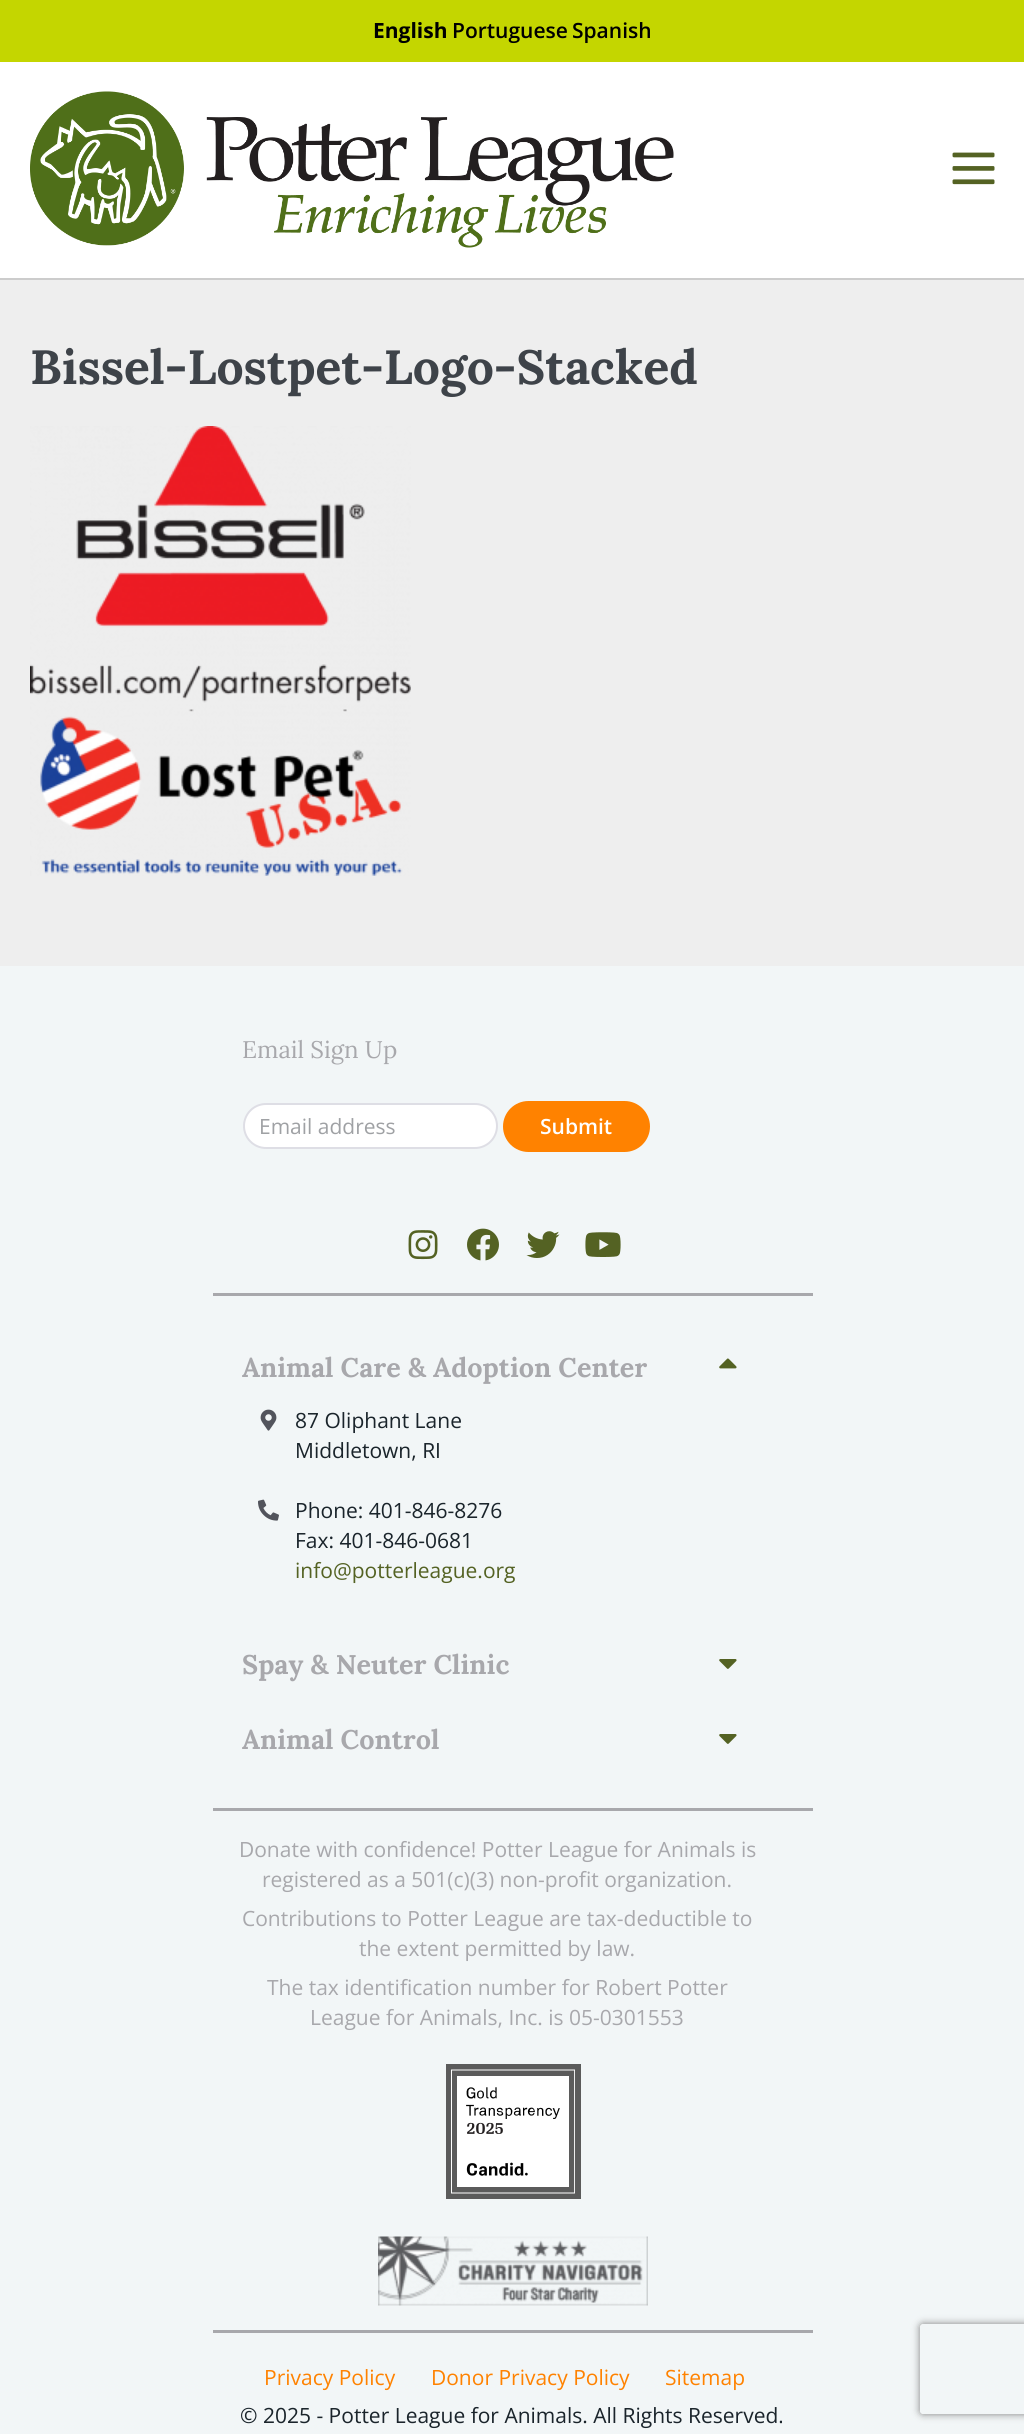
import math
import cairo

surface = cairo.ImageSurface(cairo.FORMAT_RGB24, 1024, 2434)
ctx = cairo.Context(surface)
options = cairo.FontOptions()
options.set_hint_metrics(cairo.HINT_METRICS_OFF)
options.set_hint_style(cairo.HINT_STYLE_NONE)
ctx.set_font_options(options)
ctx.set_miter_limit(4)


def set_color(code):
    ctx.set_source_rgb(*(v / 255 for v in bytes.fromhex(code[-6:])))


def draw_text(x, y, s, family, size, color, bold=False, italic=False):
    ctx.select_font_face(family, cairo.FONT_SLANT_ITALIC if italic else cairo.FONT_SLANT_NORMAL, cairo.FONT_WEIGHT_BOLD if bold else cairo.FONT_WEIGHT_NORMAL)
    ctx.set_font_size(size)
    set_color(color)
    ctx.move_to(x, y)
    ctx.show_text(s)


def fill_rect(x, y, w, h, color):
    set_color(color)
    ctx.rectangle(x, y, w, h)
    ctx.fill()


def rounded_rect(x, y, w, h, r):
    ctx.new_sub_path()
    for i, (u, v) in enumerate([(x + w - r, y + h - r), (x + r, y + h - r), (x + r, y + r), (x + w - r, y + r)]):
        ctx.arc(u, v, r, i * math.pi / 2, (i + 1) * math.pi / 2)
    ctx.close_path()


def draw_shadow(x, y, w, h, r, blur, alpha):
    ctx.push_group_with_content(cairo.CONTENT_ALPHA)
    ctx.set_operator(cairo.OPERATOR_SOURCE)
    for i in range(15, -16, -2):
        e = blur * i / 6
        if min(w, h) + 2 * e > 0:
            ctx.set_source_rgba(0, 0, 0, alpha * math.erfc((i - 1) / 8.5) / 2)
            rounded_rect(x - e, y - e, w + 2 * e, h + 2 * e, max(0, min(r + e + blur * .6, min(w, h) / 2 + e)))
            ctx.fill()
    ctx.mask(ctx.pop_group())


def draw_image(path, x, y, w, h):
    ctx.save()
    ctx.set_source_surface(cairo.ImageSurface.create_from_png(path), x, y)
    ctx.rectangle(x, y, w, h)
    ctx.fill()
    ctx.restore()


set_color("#eeeeee")
ctx.paint()
fill_rect(0, 0, 1024, 62, "#c4d600")
draw_text(373, 38, "English", "Open Sans", 21, "#000000", bold=True)
draw_text(452, 38, "Portuguese", "Open Sans SemiBold", 21, "#000000")
draw_text(572, 38, "Spanish", "Open Sans SemiBold", 21, "#000000")
fill_rect(0, 62, 1024, 216, "#ffffff")
fill_rect(0, 278, 1024, 2, "#cccccc")
draw_image("assets/img1.png", 30, 91, 644, 157)
draw_image("assets/img2.png", 952, 152, 43, 33)
draw_text(30, 384, "Bissel-Lostpet-Logo-Stacked", "Lora", 48, "#3e4349", bold=True)
draw_image("assets/img3.png", 30, 426, 381, 450)
fill_rect(0, 966, 1024, 1468, "#f2f6f7")
draw_text(242, 1058, "Email Sign Up", "Lora", 24, "#a8a8ac")
set_color("#ffffff")
rounded_rect(244, 1104, 253, 44, 22)
ctx.fill_preserve()
set_color("#dedee5")
ctx.stroke()
draw_text(259, 1134, "Email address", "Open Sans", 21, "#9fa1a4")
set_color("#ff8200")
rounded_rect(503, 1101, 147, 51, 25.5)
ctx.fill()
draw_text(540, 1134, "Submit", "Open Sans SemiBold", 21, "#ffffff")
draw_image("assets/img4.png", 408, 1230, 30, 30)
draw_image("assets/img5.png", 467, 1228, 32, 33)
draw_image("assets/img6.png", 526, 1231, 34, 27)
draw_image("assets/img7.png", 585, 1232, 36, 25)
fill_rect(213, 1293, 600, 3, "#a8a8ac")
draw_text(242, 1377, "Animal Care & Adoption Center", "Lora", 27, "#a8a8ac", bold=True)
draw_image("assets/img8.png", 719, 1358, 18, 11)
draw_image("assets/img9.png", 260, 1409, 17, 22)
draw_text(295, 1428, "87 Oliphant Lane", "Open Sans", 21, "#1a242b")
draw_text(295, 1458, "Middletown, RI", "Open Sans", 21, "#1a242b")
draw_image("assets/img10.png", 258, 1499, 21, 22)
draw_text(295, 1518, "Phone: 401-846-8276", "Open Sans", 21, "#1a242b")
draw_text(295, 1548, "Fax: 401-846-0681", "Open Sans", 21, "#1a242b")
draw_text(295, 1578, "info@potterleague.org", "Open Sans", 21, "#546223")
draw_text(242, 1674, "Spay & Neuter Clinic", "Lora", 27, "#a8a8ac", bold=True)
draw_image("assets/img11.png", 719, 1659, 18, 10)
draw_text(242, 1749, "Animal Control", "Lora", 27, "#a8a8ac", bold=True)
draw_image("assets/img11.png", 719, 1734, 18, 10)
fill_rect(213, 1808, 600, 3, "#a8a8ac")
fill_rect(213, 2330, 600, 3, "#a8a8ac")
draw_text(239, 1857, "Donate with confidence! Potter League for Animals is", "Open Sans", 21, "#a8a8ac")
draw_text(262, 1887, "registered as a 501(c)(3) non-profit organization.", "Open Sans", 21, "#a8a8ac")
draw_text(242, 1926, "Contributions to Potter League are tax-deductible to", "Open Sans", 21, "#a8a8ac")
draw_text(359, 1956, "the extent permitted by law.", "Open Sans", 21, "#a8a8ac")
draw_text(267, 1995, "The tax identification number for Robert Potter", "Open Sans", 21, "#a8a8ac")
draw_text(310, 2025, "League for Animals, Inc. is 05-0301553", "Open Sans", 21, "#a8a8ac")
draw_image("assets/img12.png", 446, 2064, 135, 135)
draw_image("assets/img13.png", 378, 2236, 270, 70)
draw_text(264, 2385, "Privacy Policy", "Open Sans", 21, "#ff8200")
draw_text(431, 2385, "Donor Privacy Policy", "Open Sans", 21, "#ff8200")
draw_text(665, 2385, "Sitemap", "Open Sans", 21, "#ff8200")
draw_text(240, 2423, "© 2025 - Potter League for Animals. All Rights Reserved.", "Open Sans", 21, "#1a242b")
ctx.save()
ctx.set_fill_rule(cairo.FILL_RULE_EVEN_ODD)
ctx.new_path()
ctx.move_to(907, 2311)
ctx.line_to(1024, 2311)
ctx.line_to(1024, 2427)
ctx.line_to(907, 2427)
ctx.close_path()
ctx.move_to(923, 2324)
ctx.line_to(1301, 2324)
ctx.curve_to(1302.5, 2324, 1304, 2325.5, 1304, 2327)
ctx.line_to(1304, 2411)
ctx.curve_to(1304, 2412.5, 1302.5, 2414, 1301, 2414)
ctx.line_to(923, 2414)
ctx.curve_to(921.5, 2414, 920, 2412.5, 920, 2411)
ctx.line_to(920, 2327)
ctx.curve_to(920, 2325.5, 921.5, 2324, 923, 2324)
ctx.close_path()
ctx.clip()
set_color("#808080")
draw_shadow(920, 2324, 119, 90, 3, 4, 1)
ctx.restore()
surface.write_to_png("output.png")
